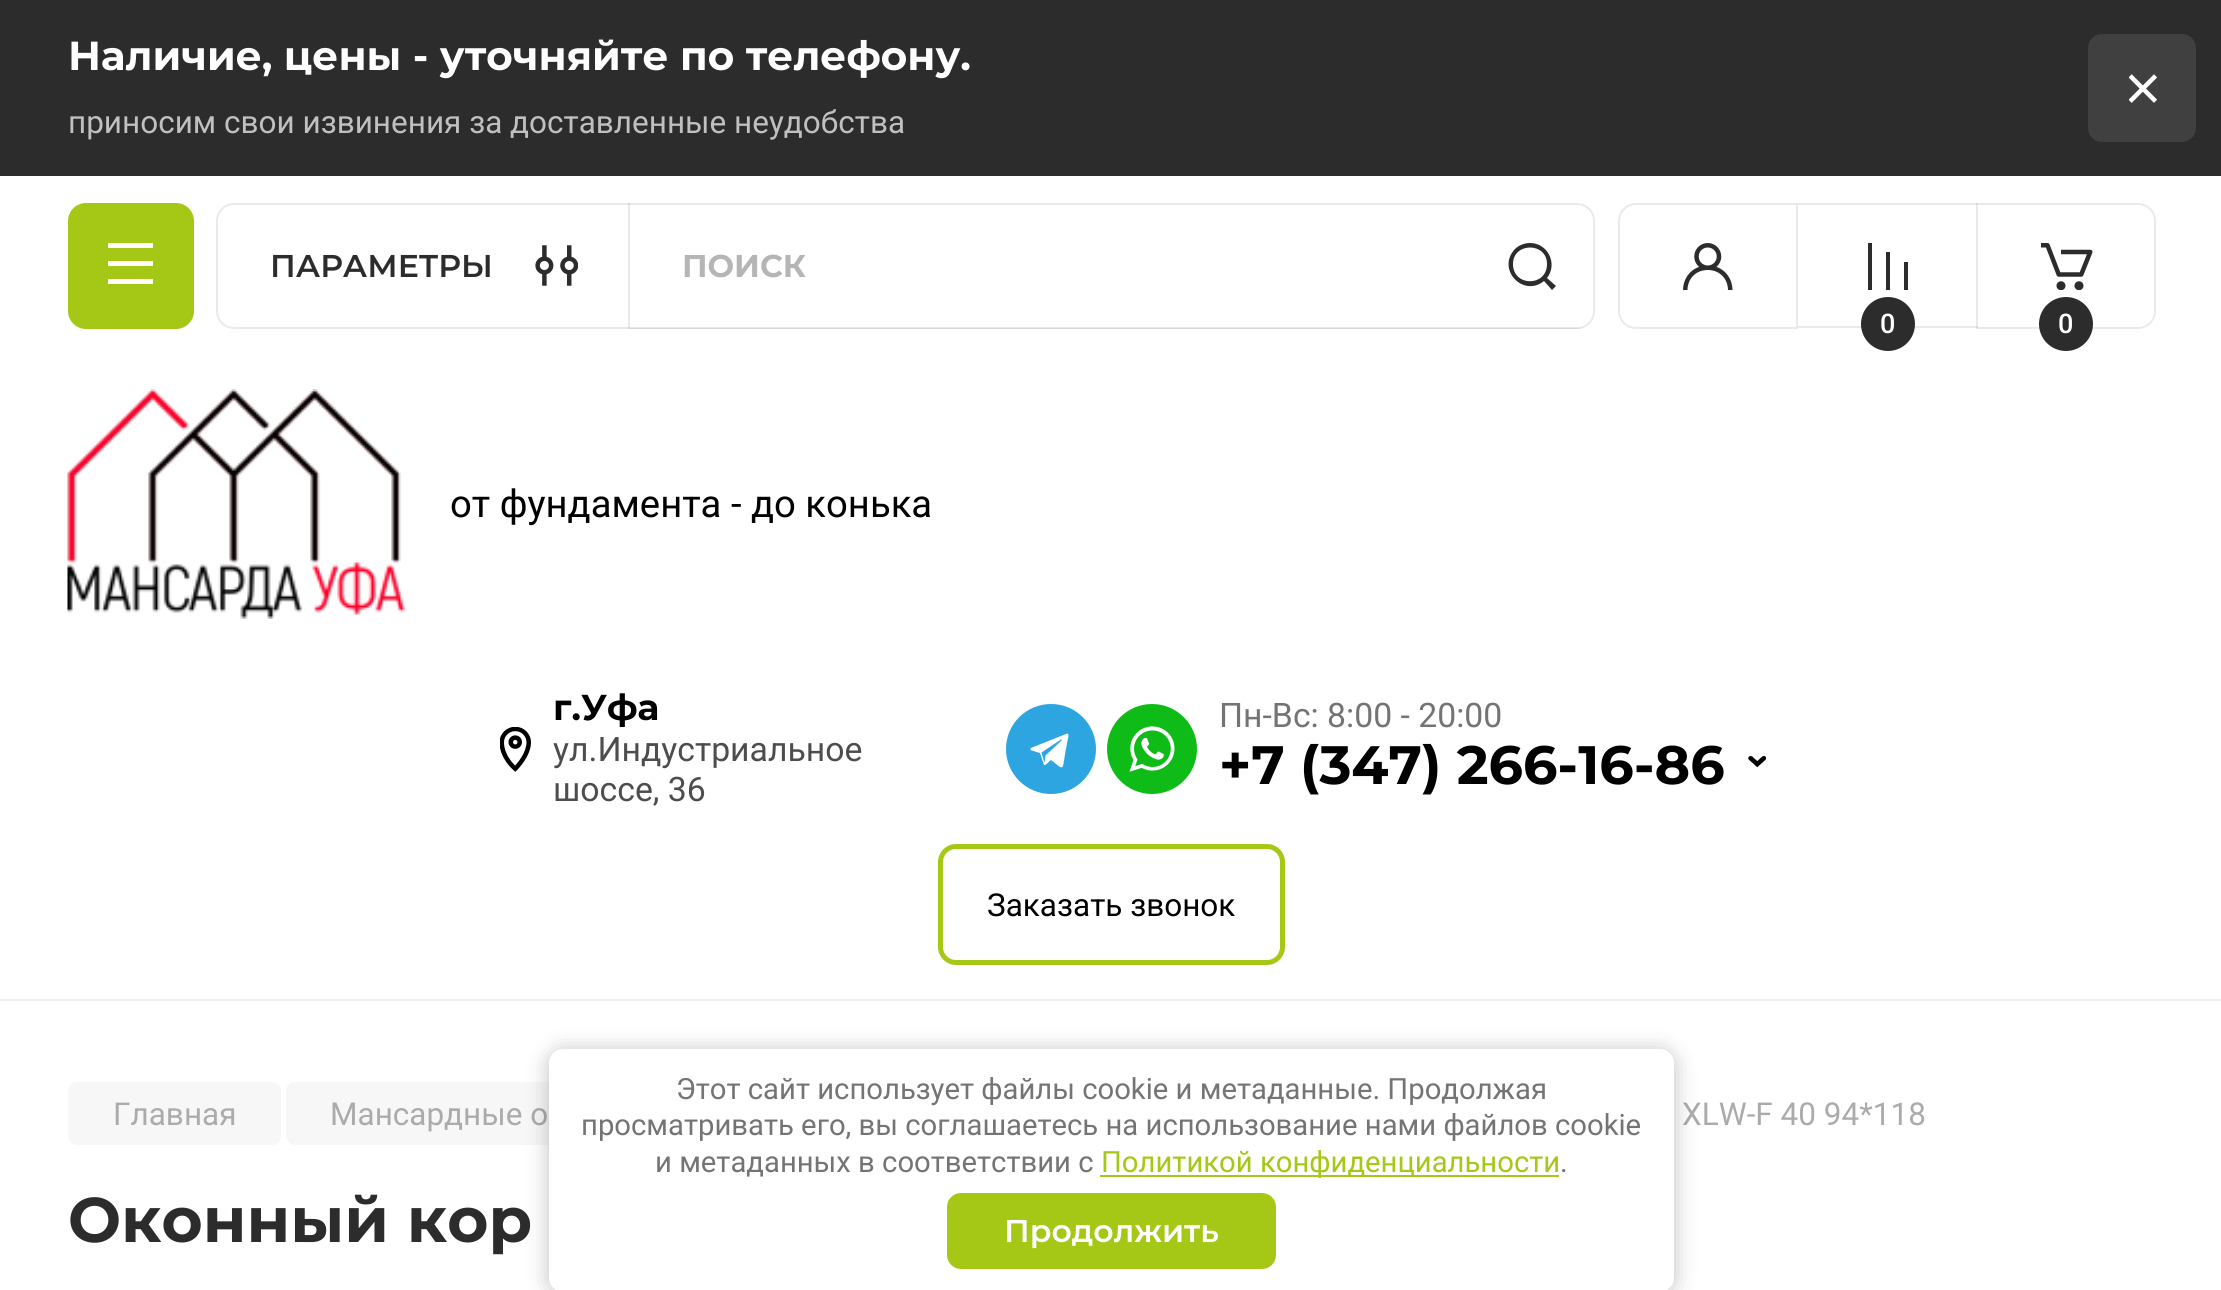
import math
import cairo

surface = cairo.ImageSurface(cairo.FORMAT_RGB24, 2221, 1290)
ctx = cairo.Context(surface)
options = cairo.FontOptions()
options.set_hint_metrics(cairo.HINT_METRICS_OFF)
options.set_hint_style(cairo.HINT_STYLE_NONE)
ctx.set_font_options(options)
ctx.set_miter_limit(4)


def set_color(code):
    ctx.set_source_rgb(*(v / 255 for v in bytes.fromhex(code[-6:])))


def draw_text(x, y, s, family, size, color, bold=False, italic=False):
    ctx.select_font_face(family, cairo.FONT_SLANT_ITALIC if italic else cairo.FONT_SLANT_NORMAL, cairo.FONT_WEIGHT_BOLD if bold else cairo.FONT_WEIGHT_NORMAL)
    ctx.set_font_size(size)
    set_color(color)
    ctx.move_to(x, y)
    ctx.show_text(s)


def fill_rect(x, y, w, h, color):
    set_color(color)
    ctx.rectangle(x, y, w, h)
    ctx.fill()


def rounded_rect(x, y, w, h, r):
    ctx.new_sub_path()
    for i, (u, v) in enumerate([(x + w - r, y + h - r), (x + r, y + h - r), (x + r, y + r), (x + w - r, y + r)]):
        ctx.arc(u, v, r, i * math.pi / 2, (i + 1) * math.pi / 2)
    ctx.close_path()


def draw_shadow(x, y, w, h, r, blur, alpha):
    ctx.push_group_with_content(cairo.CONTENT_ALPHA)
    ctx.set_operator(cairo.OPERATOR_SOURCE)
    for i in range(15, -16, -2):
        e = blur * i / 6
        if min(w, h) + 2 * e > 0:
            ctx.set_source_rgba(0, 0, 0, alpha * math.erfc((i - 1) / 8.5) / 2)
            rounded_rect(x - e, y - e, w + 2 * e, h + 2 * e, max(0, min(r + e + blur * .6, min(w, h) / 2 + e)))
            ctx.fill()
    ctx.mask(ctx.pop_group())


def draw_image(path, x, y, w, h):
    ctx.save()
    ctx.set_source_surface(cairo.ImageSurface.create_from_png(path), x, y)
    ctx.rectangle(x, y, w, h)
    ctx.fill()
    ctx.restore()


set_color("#2c2c2c")
ctx.paint()
draw_text(68, 70, "Наличие, цены - уточняйте по телефону.", "Montserrat", 40.5, "#ffffff", bold=True)
draw_text(68, 133, "приносим свои извинения за доставленные неудобства", "Roboto", 31.5, "#c0c0c0")
set_color("#404040")
rounded_rect(2088, 34, 108, 108, 14)
ctx.fill()
draw_image("assets/img1.png", 2129, 74, 28, 29)
fill_rect(0, 176, 2221, 1114, "#ffffff")
set_color("#a4c815")
rounded_rect(68, 203, 126, 126, 18)
ctx.fill()
set_color("#ffffff")
ctx.new_path()
ctx.move_to(108, 243)
ctx.line_to(153, 243)
ctx.line_to(153, 248)
ctx.line_to(108, 248)
ctx.close_path()
ctx.move_to(108, 261)
ctx.line_to(153, 261)
ctx.line_to(153, 266)
ctx.line_to(108, 266)
ctx.close_path()
ctx.move_to(153, 279)
ctx.line_to(108, 279)
ctx.line_to(108, 284)
ctx.line_to(153, 284)
ctx.close_path()
ctx.fill()
rounded_rect(217, 204, 1377, 124, 17)
set_color("#eaeaea")
ctx.stroke()
draw_text(270, 277, "ПАРАМЕТРЫ", "Montserrat SemiBold", 31.5, "#2c2c2c")
draw_image("assets/img2.png", 535, 245, 43, 41)
ctx.set_source_rgba(0.173, 0.173, 0.173, 0.1)
ctx.new_path()
ctx.move_to(628, 203)
ctx.line_to(628, 329)
ctx.line_to(1577, 329)
ctx.curve_to(1580, 329, 1582, 328, 1585, 327)
ctx.line_to(1580, 328)
ctx.line_to(630, 328)
ctx.line_to(630, 203)
ctx.close_path()
ctx.fill()
draw_text(682, 277, "ПОИСК", "Montserrat", 31.5, "#b5b5b5", bold=True)
set_color("#2c2c2c")
ctx.new_path()
ctx.move_to(1530, 243)
ctx.curve_to(1525, 243, 1519, 245, 1515, 249)
ctx.curve_to(1496, 269, 1523, 298, 1544, 281)
ctx.line_to(1552, 290)
ctx.line_to(1556, 286)
ctx.line_to(1547, 278)
ctx.curve_to(1558, 264, 1548, 243, 1530, 243)
ctx.close_path()
ctx.move_to(1513, 264)
ctx.curve_to(1513, 242, 1547, 242, 1547, 264)
ctx.curve_to(1547, 287, 1513, 287, 1513, 264)
ctx.close_path()
ctx.fill()
ctx.new_path()
ctx.move_to(1636, 204)
ctx.line_to(1797, 204)
ctx.line_to(1797, 328)
ctx.line_to(1636, 328)
ctx.curve_to(1626.5, 328, 1619, 320.5, 1619, 311)
ctx.line_to(1619, 221)
ctx.curve_to(1619, 211.5, 1626.5, 204, 1636, 204)
ctx.close_path()
set_color("#eaeaea")
ctx.stroke()
draw_image("assets/img3.png", 1683, 243, 50, 47)
fill_rect(1798, 203, 180, 2, "#eaeaea")
fill_rect(1798, 326, 180, 2, "#eaeaea")
ctx.save()
ctx.rectangle(1868, 243, 40, 47)
ctx.clip()
set_color("#2c2c2c")
ctx.new_path()
ctx.move_to(1908, 290)
ctx.line_to(1908, 262)
ctx.line_to(1904, 262)
ctx.line_to(1904, 290)
ctx.close_path()
ctx.move_to(1890, 252)
ctx.line_to(1890, 290)
ctx.line_to(1886, 290)
ctx.line_to(1886, 252)
ctx.close_path()
ctx.move_to(1872, 243)
ctx.line_to(1872, 290)
ctx.line_to(1867, 290)
ctx.line_to(1868, 243)
ctx.close_path()
ctx.fill()
ctx.restore()
set_color("#2c2c2c")
ctx.arc(1888, 324, 27, 0, 2 * math.pi)
ctx.fill()
draw_text(1880, 333, "0", "Roboto Medium", 27, "#ffffff")
ctx.new_path()
ctx.move_to(1977, 204)
ctx.line_to(2138, 204)
ctx.curve_to(2147.5, 204, 2155, 211.5, 2155, 221)
ctx.line_to(2155, 311)
ctx.curve_to(2155, 320.5, 2147.5, 328, 2138, 328)
ctx.line_to(1977, 328)
ctx.close_path()
ctx.set_source_rgba(0.173, 0.173, 0.173, 0.1)
ctx.stroke()
draw_image("assets/img4.png", 2041, 243, 52, 47)
set_color("#2c2c2c")
ctx.arc(2066, 324, 27, 0, 2 * math.pi)
ctx.fill()
draw_text(2058, 333, "0", "Roboto Medium", 27, "#ffffff")
fill_rect(0, 999, 2221, 2, "#eeeeee")
draw_image("assets/img5.png", 67, 389, 338, 230)
draw_text(450, 517, "от фундамента - до конька", "Roboto", 38.25, "#000000")
draw_text(553, 720, "г.Уфа", "Montserrat", 36, "#000000", bold=True)
draw_image("assets/img6.png", 500, 727, 31, 45)
draw_text(553, 761, "ул.Индустриальное", "Roboto", 33.75, "#4d4d4d")
draw_text(553, 801, "шоссе, 36", "Roboto", 33.75, "#4d4d4d")
set_color("#2ca5e0")
ctx.new_path()
ctx.arc(1051, 749, 45, 0, 2 * math.pi)
ctx.fill()
set_color("#ffffff")
ctx.set_fill_rule(cairo.FILL_RULE_EVEN_ODD)
ctx.new_path()
ctx.move_to(1066, 734)
ctx.line_to(1032, 747.5)
ctx.curve_to(1030, 748, 1030, 750, 1031.5, 750.5)
ctx.line_to(1040, 753)
ctx.line_to(1043, 762)
ctx.line_to(1044, 765)
ctx.curve_to(1045.5, 766, 1050, 760.5, 1051, 760)
ctx.curve_to(1065, 771, 1062, 771, 1065.5, 751)
ctx.line_to(1067.5, 741)
ctx.curve_to(1067.5, 740.5, 1070.5, 731.5, 1066, 734)
ctx.close_path()
ctx.move_to(1041.5, 752.5)
ctx.line_to(1061, 739.5)
ctx.curve_to(1062, 739, 1062, 739.5, 1061.5, 740.5)
ctx.line_to(1045.5, 755.5)
ctx.line_to(1044.5, 763)
ctx.close_path()
ctx.fill()
draw_image("assets/img7.png", 1107, 704, 90, 90)
draw_text(1219, 727, "Пн-Вс: 8:00 - 20:00", "Roboto", 33.75, "#747474")
draw_text(1219, 784, "+7 (347) 266-16-86", "Montserrat", 54, "#000000", bold=True)
draw_image("assets/img8.png", 1748, 756, 18, 11)
rounded_rect(940.5, 846.5, 342, 116, 15.5)
set_color("#a4c815")
ctx.set_line_width(5)
ctx.stroke()
draw_text(987, 916, "Заказать звонок", "Roboto", 31.5, "#000000")
set_color("#f7f7f7")
rounded_rect(68, 1082, 213, 63, 9)
ctx.fill()
draw_text(113, 1125, "Главная", "Roboto", 31.5, "#ababab")
set_color("#f7f7f7")
rounded_rect(286, 1082, 468, 63, 9)
ctx.fill()
draw_text(330, 1125, "Мансардные о", "Roboto", 31.5, "#ababab")
draw_text(1682, 1125, "XLW-F 40 94*118", "Roboto", 31.5, "#ababab")
draw_text(68, 1242, "Оконный кор", "Montserrat", 63, "#2c2c2c", bold=True)
set_color("#000000")
draw_shadow(549, 1051, 1125, 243, 14, 11, 0.25)
set_color("#ffffff")
rounded_rect(549, 1049, 1125, 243, 14)
ctx.fill()
draw_text(676, 1099, "Этот сайт использует файлы cookie и метаданные. Продолжая", "Roboto", 29.25, "#747474")
draw_text(581, 1135, "просматривать его, вы соглашаетесь на использование нами файлов cookie", "Roboto", 29.25, "#747474")
draw_text(655, 1172, "и метаданных в соответствии с", "Roboto", 29.25, "#747474")
fill_rect(1100, 1175, 459, 2, "#a4c815")
draw_text(1101, 1172, "Политикой конфиденциальности", "Roboto", 29.25, "#a4c815")
draw_text(1560, 1172, ".", "Roboto", 29.25, "#747474")
set_color("#a4c815")
rounded_rect(947, 1193, 329, 76, 14)
ctx.fill()
draw_text(1004, 1242, "Продолжить", "Montserrat SemiBold", 31.5, "#ffffff")
surface.write_to_png("output.png")
